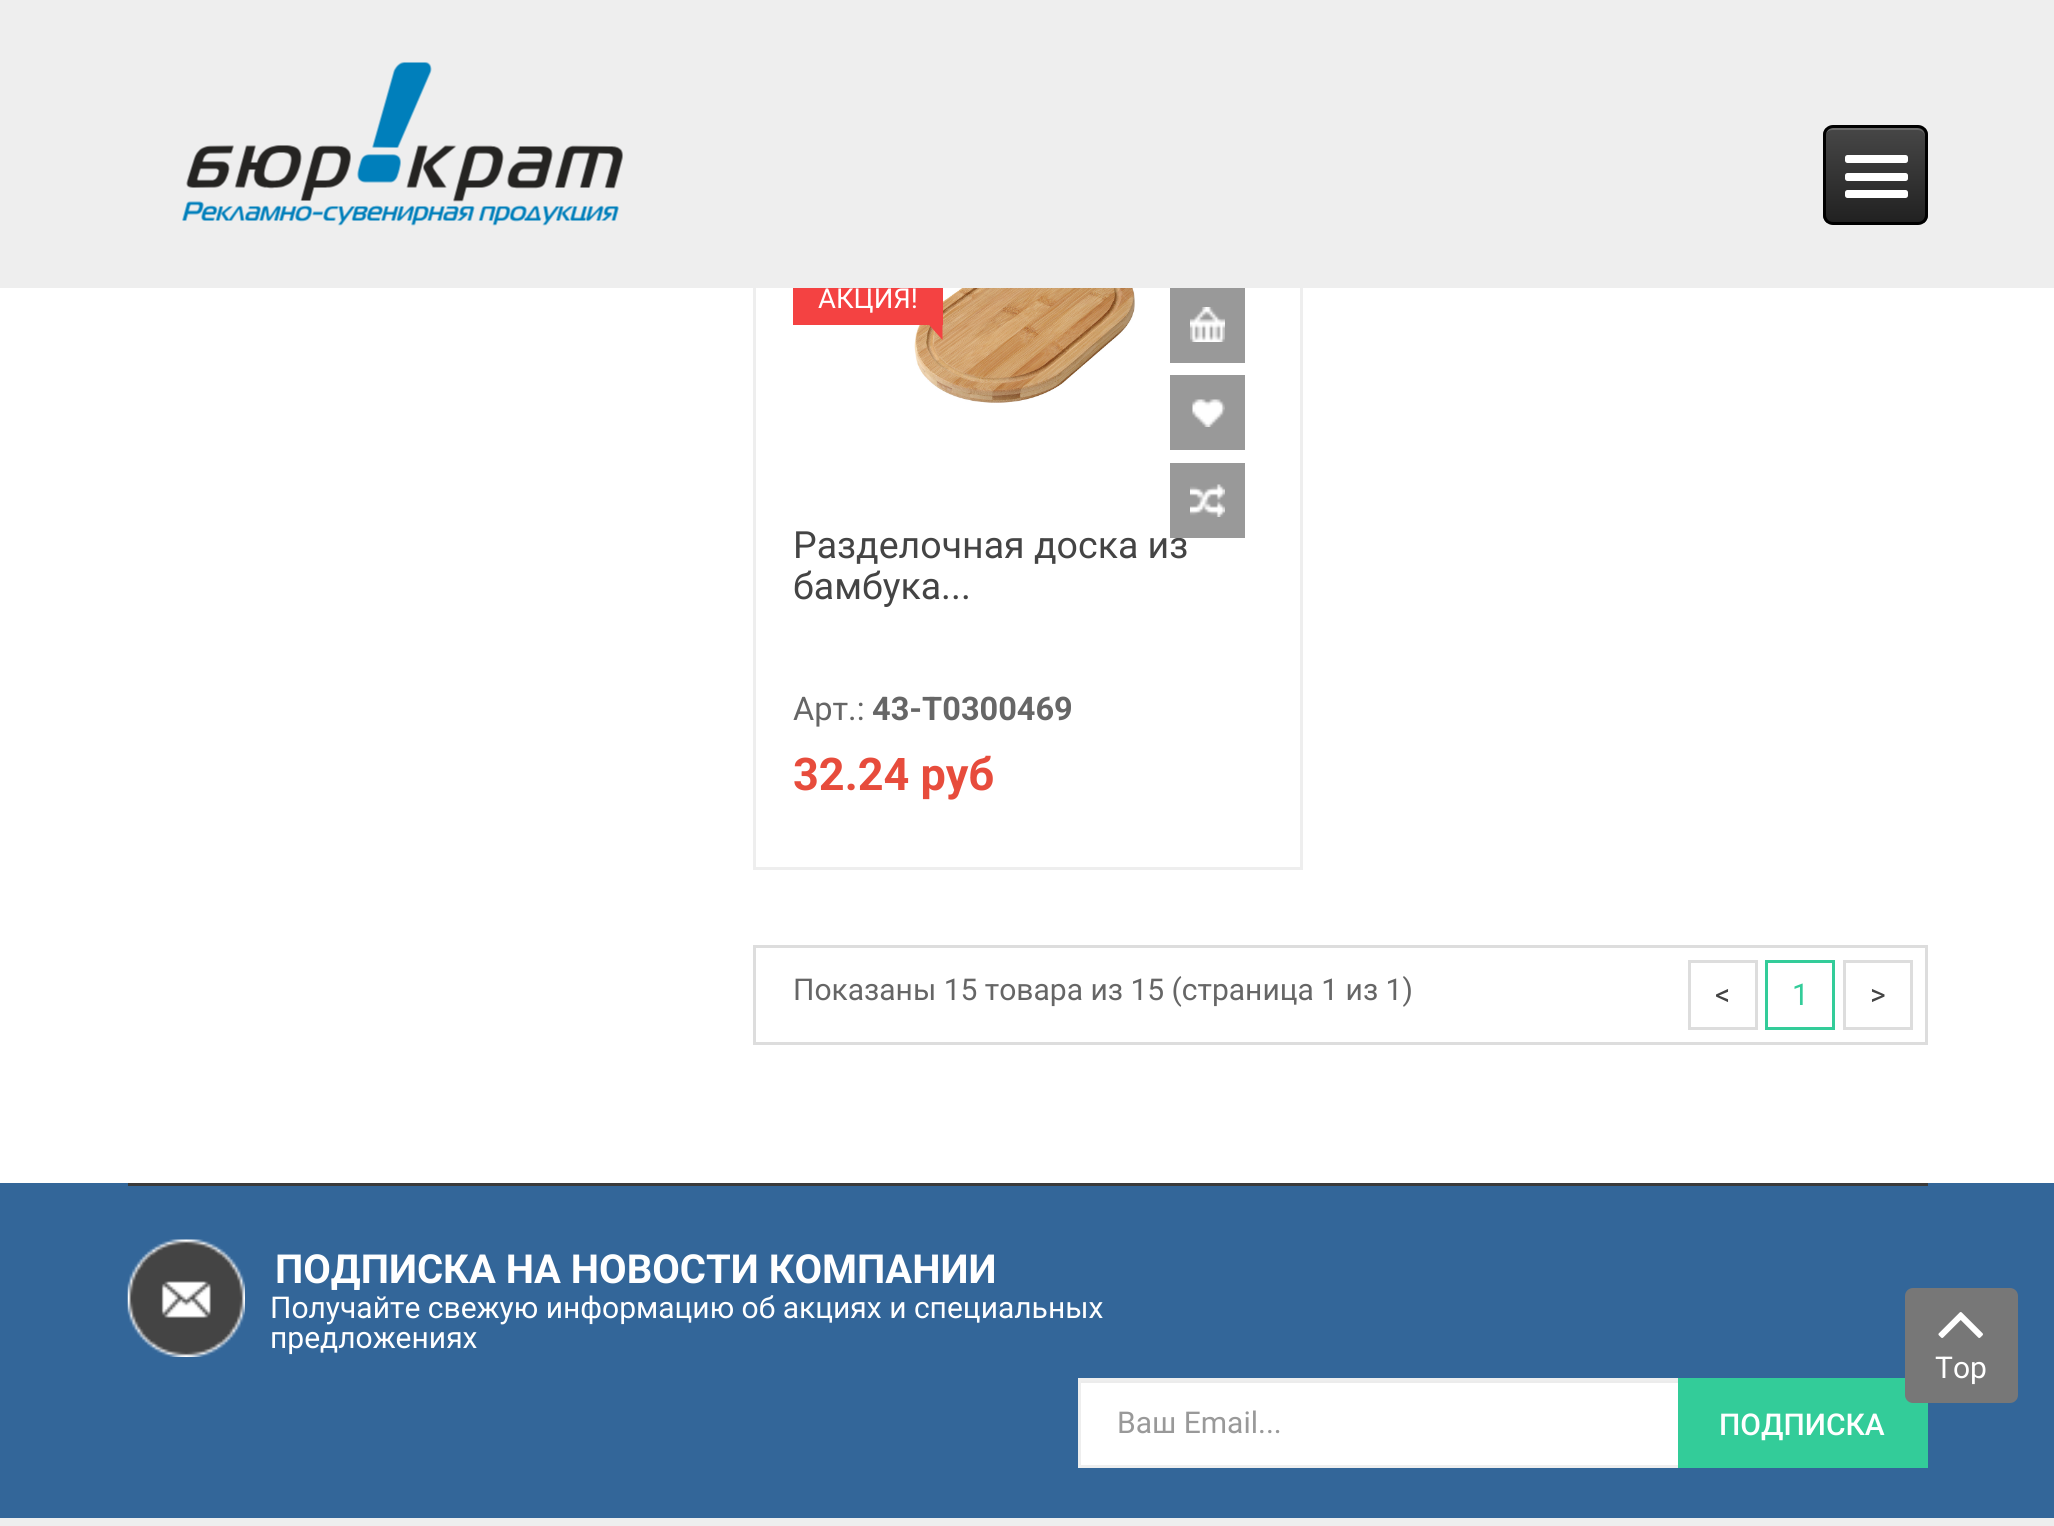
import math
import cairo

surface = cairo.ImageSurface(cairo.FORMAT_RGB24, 2054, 1526)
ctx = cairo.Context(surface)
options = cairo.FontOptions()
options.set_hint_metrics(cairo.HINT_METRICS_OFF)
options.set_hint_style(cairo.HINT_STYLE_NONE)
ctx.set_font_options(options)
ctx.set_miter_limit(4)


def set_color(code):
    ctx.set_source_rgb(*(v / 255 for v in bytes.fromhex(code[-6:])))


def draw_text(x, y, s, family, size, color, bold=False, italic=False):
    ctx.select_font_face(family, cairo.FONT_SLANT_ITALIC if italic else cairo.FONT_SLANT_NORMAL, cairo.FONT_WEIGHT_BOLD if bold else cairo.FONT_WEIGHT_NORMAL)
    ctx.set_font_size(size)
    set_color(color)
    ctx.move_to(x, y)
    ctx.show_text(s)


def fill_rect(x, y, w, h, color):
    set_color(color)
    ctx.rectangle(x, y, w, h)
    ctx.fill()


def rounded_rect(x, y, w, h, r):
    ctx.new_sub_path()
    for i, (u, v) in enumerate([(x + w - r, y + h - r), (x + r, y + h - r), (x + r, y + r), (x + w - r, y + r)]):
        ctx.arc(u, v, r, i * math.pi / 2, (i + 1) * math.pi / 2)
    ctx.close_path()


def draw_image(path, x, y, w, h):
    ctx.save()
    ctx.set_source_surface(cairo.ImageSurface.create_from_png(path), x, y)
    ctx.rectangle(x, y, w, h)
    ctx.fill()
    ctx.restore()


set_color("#ffffff")
ctx.paint()
ctx.rectangle(754.5, 161.5, 547, 707)
set_color("#eeeeee")
ctx.set_line_width(3)
ctx.stroke()
fill_rect(0, 0, 2054, 288, "#eeeeee")
draw_image("assets/img1.png", 182, 62, 441, 164)
ctx.save()
rounded_rect(1823, 125, 105, 100, 10)
ctx.clip()
gradient = cairo.LinearGradient(1875, 128, 1875, 223)
gradient.add_color_stop_rgba(0, 0.278, 0.278, 0.278, 1)
gradient.add_color_stop_rgba(1, 0.129, 0.129, 0.129, 1)
ctx.set_source(gradient)
ctx.rectangle(1823, 128, 105, 95)
ctx.fill()
ctx.restore()
set_color("#6b6b6b")
ctx.new_path()
ctx.move_to(1832, 130)
ctx.line_to(1918, 130)
ctx.curve_to(1922, 130, 1925, 133, 1925, 138)
ctx.curve_to(1925, 125, 1913, 128, 1903, 128)
ctx.line_to(1847, 128)
ctx.curve_to(1837, 128, 1825, 125, 1825, 138)
ctx.curve_to(1825, 133, 1828, 130, 1832, 130)
ctx.close_path()
ctx.fill()
rounded_rect(1824.5, 126.5, 102, 97, 8.5)
set_color("#000000")
ctx.stroke()
set_color("#ffffff")
rounded_rect(1845, 155, 63, 8, 2.5)
ctx.fill()
rounded_rect(1845, 173, 63, 8, 2.5)
ctx.fill()
rounded_rect(1845, 190, 63, 8, 2.5)
ctx.fill()
draw_image("assets/img2.png", 914, 288, 221, 115)
fill_rect(793, 288, 150, 37, "#f44242")
draw_text(818, 308, "АКЦИЯ!", "Roboto", 27.5, "#ffffff")
set_color("#f44242")
ctx.new_path()
ctx.move_to(922.5, 317.5)
ctx.line_to(942.5, 317.5)
ctx.line_to(942.5, 340)
ctx.close_path()
ctx.fill()
fill_rect(1170, 288, 75, 75, "#999999")
draw_image("assets/img3.png", 1190, 307, 35, 35)
fill_rect(1170, 375, 75, 75, "#999999")
draw_image("assets/img4.png", 1192, 399, 33, 28)
draw_text(793, 558, "Разделочная доска из", "Roboto", 37.5, "#444444")
fill_rect(1170, 463, 75, 75, "#999999")
draw_image("assets/img5.png", 1190, 484, 35, 33)
draw_text(793, 599, "бамбука...", "Roboto", 37.5, "#444444")
draw_text(793, 720, "Арт.:", "Roboto", 32.5, "#666666")
draw_text(872, 720, "43-T0300469", "Roboto", 32.5, "#666666", bold=True)
draw_text(793, 790, "32.24 руб", "Roboto", 45, "#e74c3c", bold=True)
ctx.rectangle(754.5, 946.5, 1172, 97)
set_color("#dddddd")
ctx.stroke()
draw_text(793, 1000, "Показаны 15 товара из 15 (страница 1 из 1)", "Roboto", 30, "#666666")
ctx.rectangle(1689.5, 961.5, 67, 67)
set_color("#dddddd")
ctx.stroke()
draw_text(1715, 1005, "<", "Roboto", 30, "#444444")
ctx.rectangle(1766.5, 961.5, 67, 67)
set_color("#33cc99")
ctx.stroke()
draw_text(1792, 1005, "1", "Roboto", 30, "#33cc99")
ctx.rectangle(1844.5, 961.5, 67, 67)
set_color("#dddddd")
ctx.stroke()
draw_text(1870, 1005, ">", "Roboto", 30, "#444444")
fill_rect(0, 1183, 2054, 335, "#336699")
fill_rect(128, 1183, 1800, 3, "#3a3a3a")
draw_image("assets/img6.png", 127, 1239, 118, 118)
draw_text(275, 1283, "ПОДПИСКА НА НОВОСТИ КОМПАНИИ", "Roboto", 40, "#ffffff", bold=True)
draw_text(270, 1318, "Получайте свежую информацию об акциях и специальных", "Roboto", 30, "#ffffff")
draw_text(270, 1348, "предложениях", "Roboto", 30, "#ffffff")
fill_rect(1081, 1383, 597, 82, "#ffffff")
fill_rect(1080, 1381, 598, 2, "#ececec")
fill_rect(1078, 1378, 600, 3, "#eeeeee")
fill_rect(1078, 1465, 600, 3, "#eeeeee")
fill_rect(1078, 1378, 3, 90, "#eeeeee")
draw_text(1117, 1433, "Ваш Email...", "Roboto", 30, "#999999")
fill_rect(1678, 1378, 250, 90, "#33cc99")
draw_text(1719, 1435, "ПОДПИСКА", "Roboto Medium", 30, "#ffffff")
set_color("#777777")
rounded_rect(1905, 1288, 113, 115, 8)
ctx.fill()
draw_image("assets/img7.png", 1938, 1312, 45, 26)
draw_text(1935, 1378, "Top", "Roboto", 30, "#ffffff")
fill_rect(0, 1518, 2054, 8, "#eeeeee")
surface.write_to_png("output.png")
